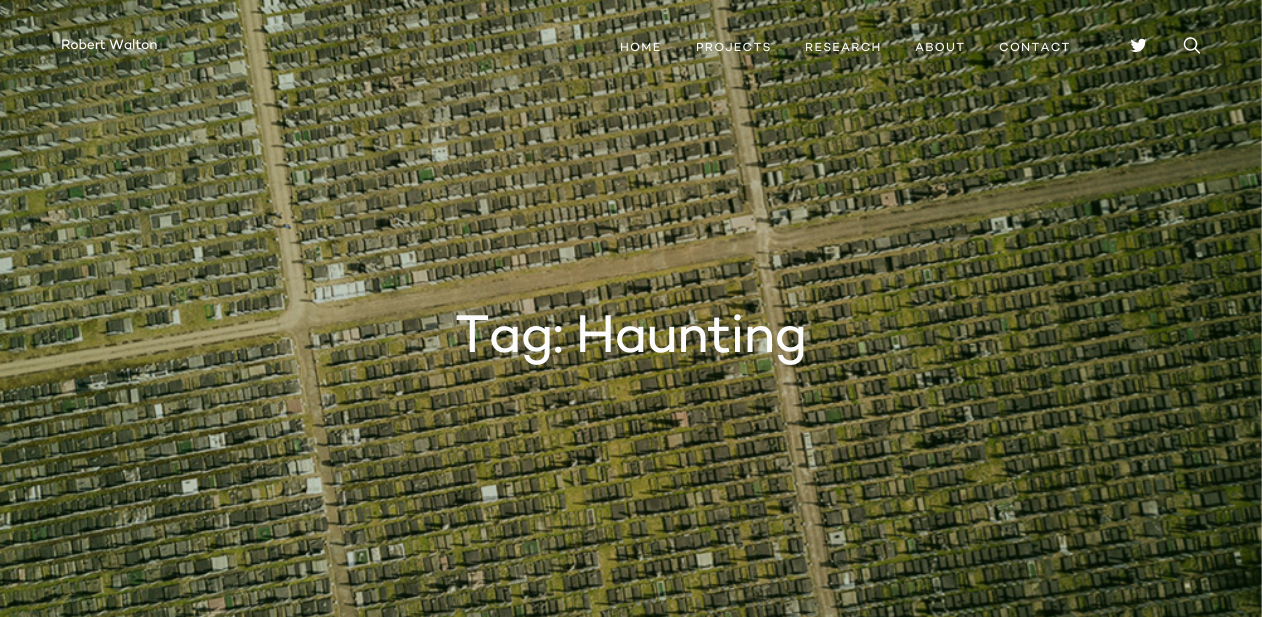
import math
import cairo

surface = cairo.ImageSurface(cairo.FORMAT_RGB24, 1262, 617)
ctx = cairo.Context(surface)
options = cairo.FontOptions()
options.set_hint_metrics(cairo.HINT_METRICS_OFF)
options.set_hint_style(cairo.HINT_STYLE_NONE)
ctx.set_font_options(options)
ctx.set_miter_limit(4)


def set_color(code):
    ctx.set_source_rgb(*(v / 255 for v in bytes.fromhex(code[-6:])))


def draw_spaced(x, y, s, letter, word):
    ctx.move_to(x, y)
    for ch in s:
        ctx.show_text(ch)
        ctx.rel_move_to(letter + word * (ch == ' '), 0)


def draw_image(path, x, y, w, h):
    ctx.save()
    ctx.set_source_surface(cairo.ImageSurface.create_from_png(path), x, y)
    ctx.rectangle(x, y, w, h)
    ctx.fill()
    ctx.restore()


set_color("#ffffff")
ctx.paint()
draw_image("assets/img3.png", 0, 0, 1262, 617)
ctx.select_font_face("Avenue")
ctx.set_font_size(14)
set_color("#fcfcfc")
draw_spaced(61, 49, "Robert Walton", -0.25, 0)
ctx.set_font_size(12)
draw_spaced(620, 51, "HOME", 1.25, 0)
draw_spaced(696, 51, "PROJECTS", 1.25, 0)
draw_spaced(805, 51, "RESEARCH", 1.25, 0)
draw_spaced(915, 51, "ABOUT", 1.25, 0)
draw_spaced(999, 51, "CONTACT", 1.25, 0)
draw_image("assets/img1.png", 1130, 38, 17, 14)
draw_image("assets/img2.png", 1183, 37, 18, 17)
ctx.set_font_size(54)
draw_spaced(455, 352, "Tag: Haunting", -1.1, 0)
surface.write_to_png("output.png")
